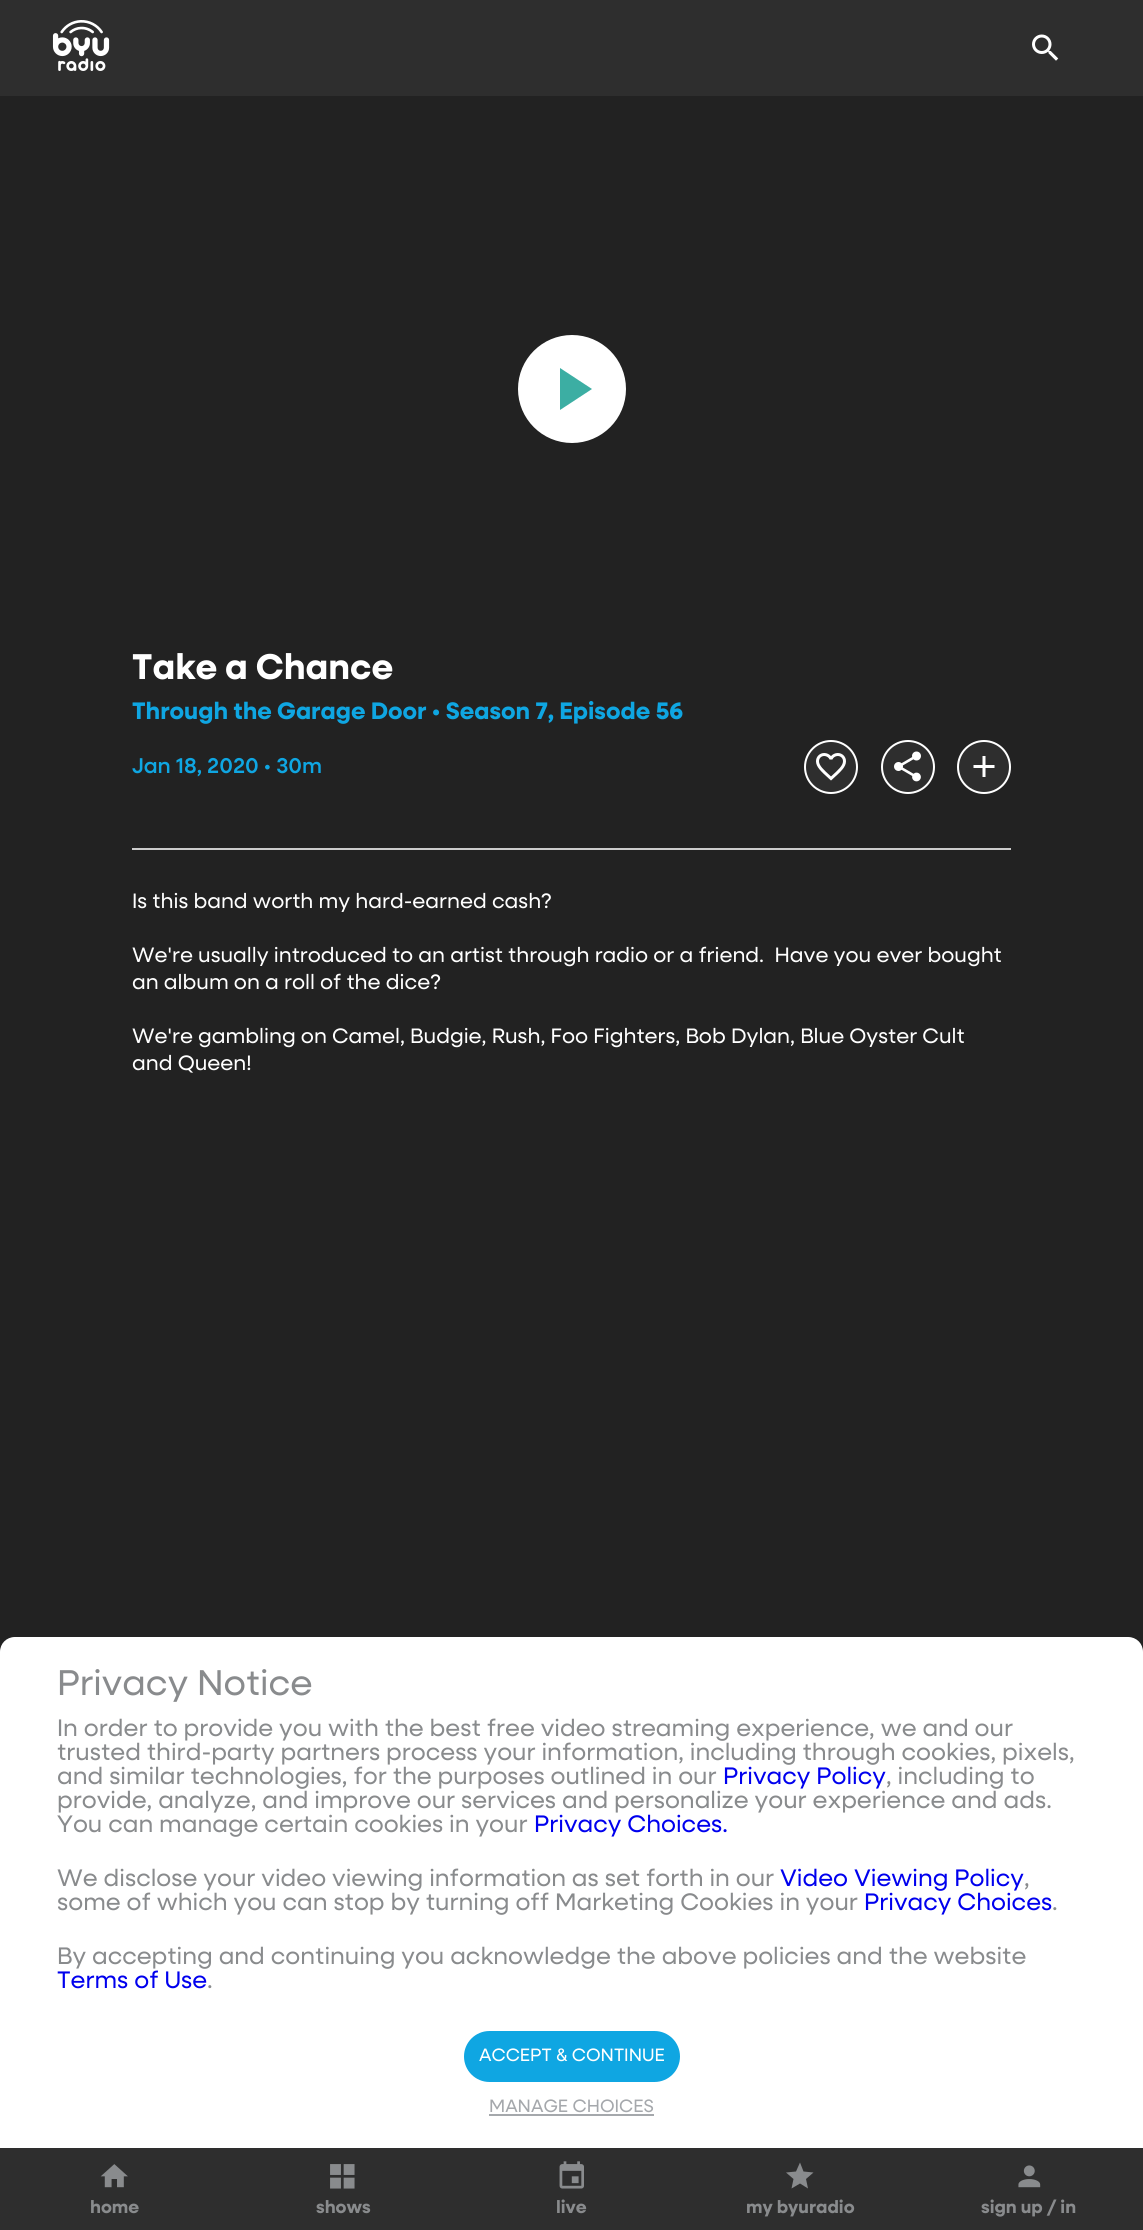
import math
import cairo

surface = cairo.ImageSurface(cairo.FORMAT_RGB24, 1143, 2230)
ctx = cairo.Context(surface)
options = cairo.FontOptions()
options.set_hint_metrics(cairo.HINT_METRICS_OFF)
options.set_hint_style(cairo.HINT_STYLE_NONE)
ctx.set_font_options(options)
ctx.set_miter_limit(4)


def set_color(code):
    ctx.set_source_rgb(*(v / 255 for v in bytes.fromhex(code[-6:])))


def draw_text(x, y, s, family, size, color, bold=False, italic=False):
    ctx.select_font_face(family, cairo.FONT_SLANT_ITALIC if italic else cairo.FONT_SLANT_NORMAL, cairo.FONT_WEIGHT_BOLD if bold else cairo.FONT_WEIGHT_NORMAL)
    ctx.set_font_size(size)
    set_color(color)
    ctx.move_to(x, y)
    ctx.show_text(s)


def fill_rect(x, y, w, h, color):
    set_color(color)
    ctx.rectangle(x, y, w, h)
    ctx.fill()


def rounded_rect(x, y, w, h, r):
    ctx.new_sub_path()
    for i, (u, v) in enumerate([(x + w - r, y + h - r), (x + r, y + h - r), (x + r, y + r), (x + w - r, y + r)]):
        ctx.arc(u, v, r, i * math.pi / 2, (i + 1) * math.pi / 2)
    ctx.close_path()


def draw_image(path, x, y, w, h):
    ctx.save()
    ctx.set_source_surface(cairo.ImageSurface.create_from_png(path), x, y)
    ctx.rectangle(x, y, w, h)
    ctx.fill()
    ctx.restore()


set_color("#222222")
ctx.paint()
fill_rect(0, 0, 1143, 96, "#2e2e2e")
draw_image("assets/img1.png", 52, 20, 58, 51)
draw_image("assets/img2.png", 1032, 34, 27, 27)
set_color("#ffffff")
ctx.arc(572, 389, 52.5, 0, 2 * math.pi)
ctx.fill_preserve()
ctx.set_line_width(3)
ctx.stroke()
set_color("#3caea3")
ctx.new_path()
ctx.move_to(560, 368)
ctx.line_to(560, 410)
ctx.line_to(592, 389)
ctx.close_path()
ctx.fill()
draw_text(132, 679, "Take a Chance", "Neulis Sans", 36, "#ffffff", bold=True)
draw_text(132, 719, "Through the Garage Door • Season 7, Episode 56", "Neulis Sans", 24, "#0fa6e2", bold=True)
draw_text(132, 773, "Jan 18, 2020 • 30m", "Neulis Sans Medium", 21.5, "#0fa6e2")
set_color("#2e2e2e")
ctx.new_path()
ctx.arc(831, 767, 26, 0, 2 * math.pi)
ctx.fill_preserve()
set_color("#ffffff")
ctx.set_line_width(2)
ctx.stroke()
draw_image("assets/img3.png", 816, 753, 30, 28)
set_color("#2e2e2e")
ctx.arc(908, 767, 26, 0, 2 * math.pi)
ctx.fill_preserve()
set_color("#ffffff")
ctx.stroke()
draw_image("assets/img4.png", 894, 751, 27, 31)
set_color("#2e2e2e")
ctx.arc(984, 767, 26, 0, 2 * math.pi)
ctx.fill_preserve()
set_color("#ffffff")
ctx.stroke()
draw_image("assets/img5.png", 973, 756, 22, 21)
fill_rect(132, 848, 879, 2, "#cccccc")
draw_text(132, 908, "Is this band worth my hard-earned cash?", "Neulis Sans", 21, "#ffffff")
draw_text(132, 962, "We're usually introduced to an artist through radio or a friend.  Have you ever bought", "Neulis Sans", 21, "#ffffff")
draw_text(132, 989, "an album on a roll of the dice?", "Neulis Sans", 21, "#ffffff")
draw_text(132, 1043, "We're gambling on Camel, Budgie, Rush, Foo Fighters, Bob Dylan, Blue Oyster Cult", "Neulis Sans", 21, "#ffffff")
draw_text(132, 1070, "and Queen!", "Neulis Sans", 21, "#ffffff")
ctx.new_path()
ctx.move_to(15, 1637)
ctx.line_to(1128, 1637)
ctx.curve_to(1136.5, 1637, 1143, 1643.5, 1143, 1652)
ctx.line_to(1143, 2148)
ctx.line_to(0, 2148)
ctx.line_to(0, 1652)
ctx.curve_to(0, 1643.5, 6.5, 1637, 15, 1637)
ctx.close_path()
ctx.fill()
draw_text(57, 1695, "Privacy Notice", "Neulis Sans", 36, "#898b8d")
draw_text(57, 1736, "In order to provide you with the best free video streaming experience, we and our", "Neulis Sans", 24, "#898b8d")
draw_text(57, 1760, "trusted third-party partners process your information, including through cookies, pixels,", "Neulis Sans", 24, "#898b8d")
draw_text(57, 1784, "and similar technologies, for the purposes outlined in our", "Neulis Sans", 24, "#898b8d")
draw_text(723, 1784, "Privacy Policy", "Neulis Sans", 24, "#0000ee")
draw_text(886, 1784, ", including to", "Neulis Sans", 24, "#898b8d")
draw_text(57, 1808, "provide, analyze, and improve our services and personalize your experience and ads.", "Neulis Sans", 24, "#898b8d")
draw_text(57, 1832, "You can manage certain cookies in your", "Neulis Sans", 24, "#898b8d")
draw_text(534, 1832, "Privacy Choices.", "Neulis Sans", 24, "#0000ee")
draw_text(57, 1886, "We disclose your video viewing information as set forth in our", "Neulis Sans", 24, "#898b8d")
draw_text(780, 1886, "Video Viewing Policy", "Neulis Sans", 24, "#0000ee")
draw_text(1024, 1886, ",", "Neulis Sans", 24, "#898b8d")
draw_text(57, 1910, "some of which you can stop by turning off Marketing Cookies in your", "Neulis Sans", 24, "#898b8d")
draw_text(864, 1910, "Privacy Choices", "Neulis Sans", 24, "#0000ee")
draw_text(1052, 1910, ".", "Neulis Sans", 24, "#898b8d")
draw_text(57, 1964, "By accepting and continuing you acknowledge the above policies and the website", "Neulis Sans", 24, "#898b8d")
draw_text(57, 1988, "Terms of Use", "Neulis Sans", 24, "#0000ee")
draw_text(207, 1988, ".", "Neulis Sans", 24, "#898b8d")
set_color("#0fa6e2")
rounded_rect(464, 2031, 216, 51, 25.5)
ctx.fill()
draw_text(479, 2061, "ACCEPT & CONTINUE", "Neulis Sans", 18, "#ffffff")
draw_text(489, 2112, "MANAGE CHOICES", "Neulis Sans", 18, "#a5a8ac")
fill_rect(489, 2114, 165, 2, "#a5a8ac")
fill_rect(0, 2148, 1143, 82, "#2e2e2e")
draw_image("assets/img6.png", 100, 2164, 28, 24)
draw_text(90, 2213, "home", "Neulis Sans", 18, "#898b8d", bold=True)
draw_image("assets/img7.png", 330, 2164, 25, 25)
draw_text(316, 2213, "shows", "Neulis Sans", 18, "#898b8d", bold=True)
draw_image("assets/img8.png", 559, 2161, 25, 28)
draw_text(556, 2213, "live", "Neulis Sans", 18, "#898b8d", bold=True)
ctx.new_path()
ctx.move_to(800, 2183.5)
ctx.line_to(808, 2188.5)
ctx.line_to(806, 2179)
ctx.line_to(813.5, 2172.5)
ctx.line_to(803.5, 2171.5)
ctx.line_to(800, 2162.5)
ctx.line_to(796, 2171.5)
ctx.line_to(786, 2172.5)
ctx.line_to(793.5, 2179)
ctx.line_to(791.5, 2188.5)
ctx.close_path()
ctx.fill()
draw_text(746, 2213, "my byuradio", "Neulis Sans", 18, "#898b8d", bold=True)
draw_image("assets/img9.png", 1018, 2165, 23, 23)
draw_text(981, 2213, "sign up / in", "Neulis Sans", 18, "#898b8d", bold=True)
surface.write_to_png("output.png")
